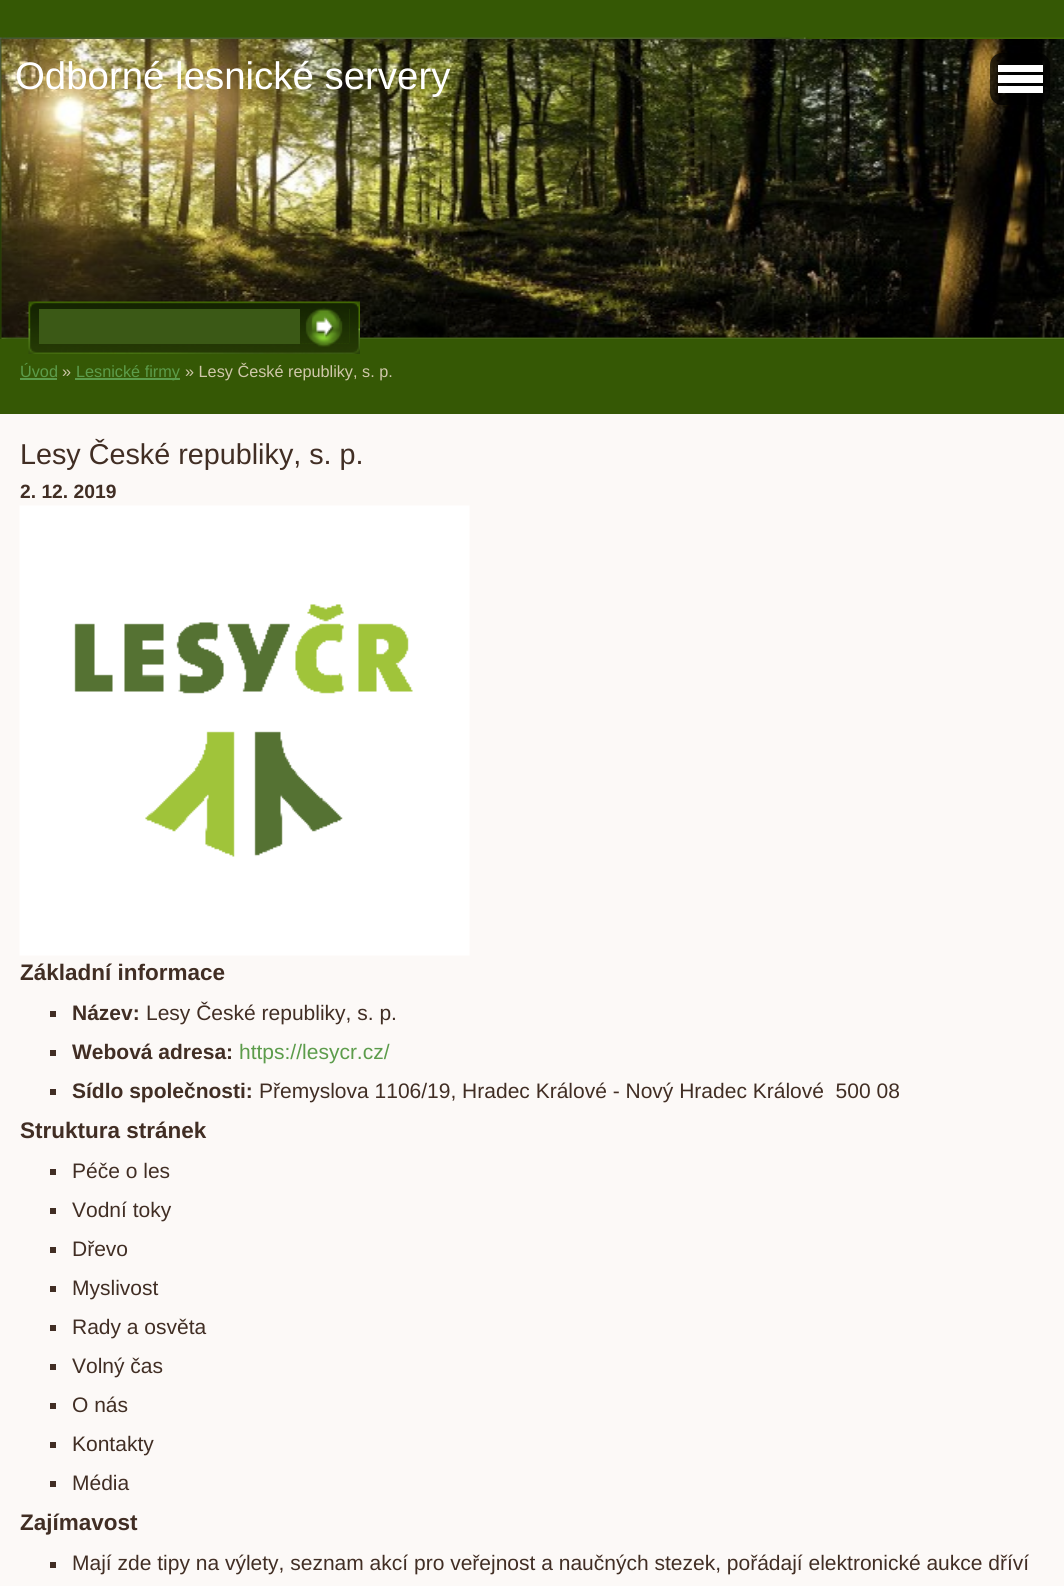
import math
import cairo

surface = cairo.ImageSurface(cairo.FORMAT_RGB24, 1064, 1586)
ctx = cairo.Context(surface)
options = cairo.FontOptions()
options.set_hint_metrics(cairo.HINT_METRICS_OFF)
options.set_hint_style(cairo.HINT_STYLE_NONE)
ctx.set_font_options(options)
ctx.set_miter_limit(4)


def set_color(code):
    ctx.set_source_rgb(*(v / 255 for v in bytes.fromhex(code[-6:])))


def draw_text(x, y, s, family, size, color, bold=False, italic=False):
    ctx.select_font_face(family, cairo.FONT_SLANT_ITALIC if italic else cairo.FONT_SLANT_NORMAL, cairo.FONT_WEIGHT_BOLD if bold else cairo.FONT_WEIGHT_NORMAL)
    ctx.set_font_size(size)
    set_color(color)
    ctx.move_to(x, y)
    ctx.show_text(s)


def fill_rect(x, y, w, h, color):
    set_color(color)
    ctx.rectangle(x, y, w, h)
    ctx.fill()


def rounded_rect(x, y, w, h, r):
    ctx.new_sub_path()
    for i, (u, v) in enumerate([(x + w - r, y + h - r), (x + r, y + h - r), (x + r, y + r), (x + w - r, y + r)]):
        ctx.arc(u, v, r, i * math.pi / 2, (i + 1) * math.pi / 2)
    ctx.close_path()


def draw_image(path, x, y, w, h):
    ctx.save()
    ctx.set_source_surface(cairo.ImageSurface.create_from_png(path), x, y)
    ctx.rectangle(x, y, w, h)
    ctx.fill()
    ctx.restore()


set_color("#355805")
ctx.paint()
draw_image("assets/img1.png", 0, 37, 1064, 302)
draw_image("assets/img2.png", 1, 39, 1063, 299)
draw_text(15, 89, "Odborné lesnické servery", "Liberation Sans", 38.4, "#ffffff")
ctx.set_source_rgba(0, 0, 0, 0.7)
rounded_rect(990, 53, 60, 52, 12)
ctx.fill()
fill_rect(998, 65, 45, 7, "#ffffff")
fill_rect(998, 75, 45, 8, "#ffffff")
fill_rect(998, 86, 45, 7, "#ffffff")
draw_image("assets/img3.png", 28, 301, 332, 53)
draw_image("assets/img4.png", 300, 309, 50, 35)
draw_image("assets/img5.png", 300, 309, 50, 35)
fill_rect(39, 309, 261, 35, "#3b5916")
draw_image("assets/img6.png", 305, 307, 38, 40)
draw_text(20, 377, "Úvod", "Liberation Sans", 16.25, "#5c9c4b")
fill_rect(20, 378, 37, 2, "#5c9c4b")
draw_text(62, 377, "»", "Liberation Sans", 16.25, "#d0c8aa")
fill_rect(75, 378, 105, 2, "#5c9c4b")
draw_text(76, 377, "Lesnické firmy", "Liberation Sans", 16.25, "#5c9c4b")
draw_text(185, 377, "» Lesy České republiky, s. p.", "Liberation Sans", 16.25, "#d0c8aa")
fill_rect(0, 414, 1064, 1172, "#fcf9f7")
draw_text(20, 464, "Lesy České republiky, s. p.", "Liberation Sans", 28.75, "#412e24")
draw_text(20, 498, "2. 12. 2019", "Liberation Sans", 19.25, "#412e24", bold=True)
draw_image("assets/img7.png", 19, 505, 451, 451)
draw_text(20, 980, "Základní informace", "Liberation Sans", 22.5, "#412e24", bold=True)
fill_rect(50, 1011, 6, 6, "#412e24")
draw_text(72, 1020, "Název:", "Liberation Sans", 21, "#412e24", bold=True)
draw_text(146, 1020, "Lesy České republiky, s. p.", "Liberation Sans", 21, "#412e24")
fill_rect(50, 1050, 6, 6, "#412e24")
draw_text(72, 1059, "Webová adresa:", "Liberation Sans", 21, "#412e24", bold=True)
draw_text(239, 1059, "https://lesycr.cz/", "Liberation Sans", 21, "#5c9c4b")
fill_rect(50, 1089, 6, 6, "#412e24")
draw_text(72, 1098, "Sídlo společnosti:", "Liberation Sans", 21, "#412e24", bold=True)
draw_text(259, 1098, "Přemyslova 1106/19, Hradec Králové - Nový Hradec Králové  500 08", "Liberation Sans", 21, "#412e24")
draw_text(20, 1138, "Struktura stránek", "Liberation Sans", 22.5, "#412e24", bold=True)
fill_rect(50, 1169, 6, 6, "#412e24")
draw_text(72, 1178, "Péče o les", "Liberation Sans", 21, "#412e24")
fill_rect(50, 1208, 6, 6, "#412e24")
draw_text(72, 1217, "Vodní toky", "Liberation Sans", 21, "#412e24")
fill_rect(50, 1247, 6, 6, "#412e24")
draw_text(72, 1256, "Dřevo", "Liberation Sans", 21, "#412e24")
fill_rect(50, 1286, 6, 6, "#412e24")
draw_text(72, 1295, "Myslivost", "Liberation Sans", 21, "#412e24")
fill_rect(50, 1325, 6, 6, "#412e24")
draw_text(72, 1334, "Rady a osvěta", "Liberation Sans", 21, "#412e24")
fill_rect(50, 1364, 6, 6, "#412e24")
draw_text(72, 1373, "Volný čas", "Liberation Sans", 21, "#412e24")
fill_rect(50, 1403, 6, 6, "#412e24")
draw_text(72, 1412, "O nás", "Liberation Sans", 21, "#412e24")
fill_rect(50, 1442, 6, 6, "#412e24")
draw_text(72, 1451, "Kontakty", "Liberation Sans", 21, "#412e24")
fill_rect(50, 1481, 6, 6, "#412e24")
draw_text(72, 1490, "Média", "Liberation Sans", 21, "#412e24")
draw_text(20, 1530, "Zajímavost", "Liberation Sans", 22.5, "#412e24", bold=True)
fill_rect(50, 1562, 6, 6, "#412e24")
draw_text(72, 1570, "Mají zde tipy na výlety, seznam akcí pro veřejnost a naučných stezek, pořádají elektronické aukce dříví", "Liberation Sans", 21, "#412e24")
surface.write_to_png("output.png")
